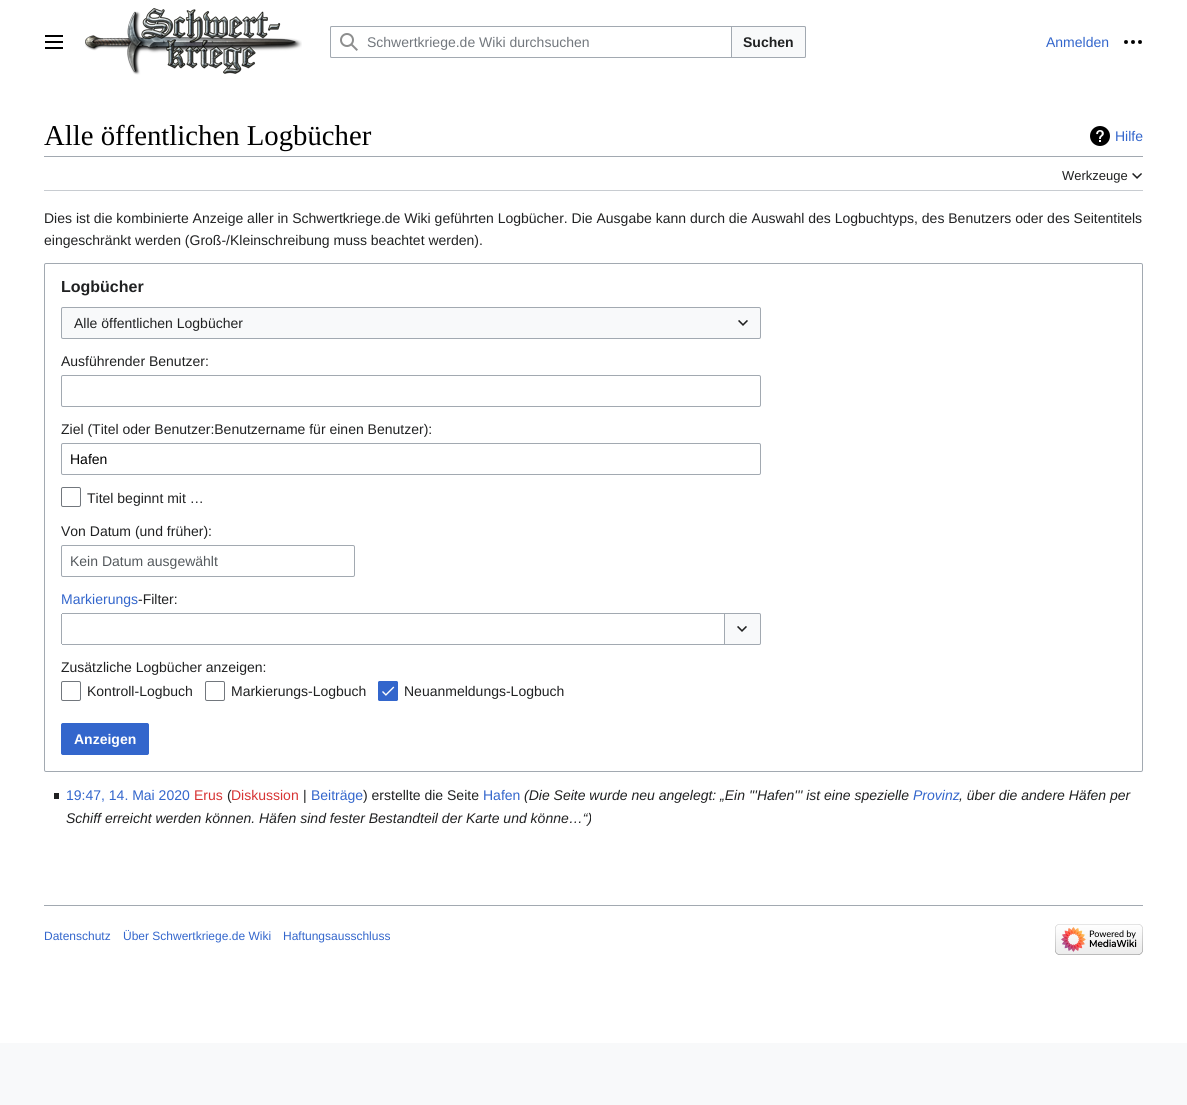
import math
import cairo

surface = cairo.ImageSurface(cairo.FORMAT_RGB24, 1187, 1105)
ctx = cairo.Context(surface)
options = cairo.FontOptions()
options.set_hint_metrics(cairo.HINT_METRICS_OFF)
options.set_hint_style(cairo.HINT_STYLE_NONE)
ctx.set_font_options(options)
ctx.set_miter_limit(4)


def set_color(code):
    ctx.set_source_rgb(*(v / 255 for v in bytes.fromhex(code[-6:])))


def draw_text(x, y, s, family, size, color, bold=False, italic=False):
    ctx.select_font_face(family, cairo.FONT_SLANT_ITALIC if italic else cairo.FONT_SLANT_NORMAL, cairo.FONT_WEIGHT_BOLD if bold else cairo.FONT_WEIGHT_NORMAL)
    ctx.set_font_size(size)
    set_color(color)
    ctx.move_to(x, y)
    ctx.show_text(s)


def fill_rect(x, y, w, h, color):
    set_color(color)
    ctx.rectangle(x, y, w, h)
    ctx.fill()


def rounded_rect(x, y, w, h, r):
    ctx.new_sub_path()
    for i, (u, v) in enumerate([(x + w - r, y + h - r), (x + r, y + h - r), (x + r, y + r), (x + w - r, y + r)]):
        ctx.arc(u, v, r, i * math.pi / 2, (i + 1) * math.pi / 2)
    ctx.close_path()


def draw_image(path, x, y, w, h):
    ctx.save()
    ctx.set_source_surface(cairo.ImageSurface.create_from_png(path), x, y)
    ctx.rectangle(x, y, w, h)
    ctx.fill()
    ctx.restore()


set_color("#f8f9fa")
ctx.paint()
fill_rect(0, 0, 1187, 1043, "#ffffff")
draw_image("assets/img1.png", 45, 35, 18, 14)
draw_image("assets/img2.png", 85, 8, 217, 67)
rounded_rect(330.5, 26.5, 475, 31, 1.5)
set_color("#a2a9b1")
ctx.set_line_width(1)
ctx.stroke()
set_color("#f8f9fa")
ctx.new_path()
ctx.move_to(731.5, 26.5)
ctx.line_to(804, 26.5)
ctx.curve_to(805, 26.5, 805.5, 27, 805.5, 28)
ctx.line_to(805.5, 56)
ctx.curve_to(805.5, 57, 805, 57.5, 804, 57.5)
ctx.line_to(731.5, 57.5)
ctx.close_path()
ctx.fill_preserve()
set_color("#a2a9b1")
ctx.stroke()
set_color("#ffffff")
ctx.new_path()
ctx.move_to(332, 26.5)
ctx.line_to(731.5, 26.5)
ctx.line_to(731.5, 57.5)
ctx.line_to(332, 57.5)
ctx.curve_to(331, 57.5, 330.5, 57, 330.5, 56)
ctx.line_to(330.5, 28)
ctx.curve_to(330.5, 27, 331, 26.5, 332, 26.5)
ctx.close_path()
ctx.fill_preserve()
set_color("#a2a9b1")
ctx.stroke()
draw_image("assets/img3.png", 340, 33, 18, 18)
draw_text(367, 47, "Schwertkriege.de Wiki durchsuchen", "Liberation Sans", 14, "#72777d")
draw_text(743, 47, "Suchen", "Liberation Sans", 14, "#202122", bold=True)
draw_text(1046, 47, "Anmelden", "Liberation Sans", 14, "#3366cc")
draw_image("assets/img4.png", 1124, 40, 18, 4)
fill_rect(44, 156, 1099, 1, "#a2a9b1")
draw_text(44, 145, "Alle öffentlichen Logbücher", "Liberation Serif", 28.75, "#000000")
draw_image("assets/img5.png", 1090, 126, 20, 20)
draw_text(1115, 141, "Hilfe", "Liberation Sans", 14, "#3366cc")
fill_rect(44, 190, 1099, 1, "#c8ccd1")
draw_text(1062, 180, "Werkzeuge", "Liberation Sans", 13, "#202122")
draw_image("assets/img6.png", 1132, 173, 10, 6)
draw_text(44, 223, "Dies ist die kombinierte Anzeige aller in Schwertkriege.de Wiki geführten Logbücher. Die Ausgabe kann durch die Auswahl des Logbuchtyps, des Benutzers oder des Seitentitels", "Liberation Sans", 14, "#202122")
draw_text(44, 245, "eingeschränkt werden (Groß-/Kleinschreibung muss beachtet werden).", "Liberation Sans", 14, "#202122")
rounded_rect(44.5, 263.5, 1098, 508, 1.5)
set_color("#a2a9b1")
ctx.stroke()
draw_text(61, 292, "Logbücher", "Liberation Sans", 16, "#202122", bold=True)
fill_rect(61, 307, 700, 32, "#f8f9fa")
rounded_rect(61.5, 307.5, 699, 31, 1.5)
set_color("#a2a9b1")
ctx.stroke()
draw_text(74, 328, "Alle öffentlichen Logbücher", "Liberation Sans", 14, "#202122")
draw_image("assets/img7.png", 738, 320, 10, 6)
draw_text(61, 366, "Ausführender Benutzer:", "Liberation Sans", 14, "#202122")
rounded_rect(61.5, 375.5, 699, 31, 1.5)
set_color("#a2a9b1")
ctx.stroke()
draw_text(61, 434, "Ziel (Titel oder Benutzer:Benutzername für einen Benutzer):", "Liberation Sans", 14, "#202122")
rounded_rect(61.5, 443.5, 699, 31, 1.5)
set_color("#a2a9b1")
ctx.stroke()
draw_text(70, 464, "Hafen", "Liberation Sans", 14, "#000000")
rounded_rect(61.5, 487.5, 19, 19, 1.5)
set_color("#72777d")
ctx.stroke()
draw_text(87, 503, "Titel beginnt mit …", "Liberation Sans", 14, "#202122")
draw_text(61, 536, "Von Datum (und früher):", "Liberation Sans", 14, "#202122")
rounded_rect(61.5, 545.5, 293, 31, 1.5)
set_color("#a2a9b1")
ctx.stroke()
draw_text(70, 566, "Kein Datum ausgewählt", "Liberation Sans", 14, "#54595d")
draw_text(61, 604, "Markierungs", "Liberation Sans", 14, "#3366cc")
draw_text(138, 604, "-Filter:", "Liberation Sans", 14, "#202122")
fill_rect(62, 613, 662, 1, "#a2a9b1")
fill_rect(62, 644, 662, 1, "#a2a9b1")
fill_rect(61, 614, 1, 30, "#a2a9b1")
set_color("#f8f9fa")
ctx.new_path()
ctx.move_to(724.5, 613.5)
ctx.line_to(759, 613.5)
ctx.curve_to(760, 613.5, 760.5, 614, 760.5, 615)
ctx.line_to(760.5, 643)
ctx.curve_to(760.5, 644, 760, 644.5, 759, 644.5)
ctx.line_to(724.5, 644.5)
ctx.close_path()
ctx.fill_preserve()
set_color("#a2a9b1")
ctx.stroke()
draw_image("assets/img7.png", 737, 626, 10, 6)
draw_text(61, 672, "Zusätzliche Logbücher anzeigen:", "Liberation Sans", 14, "#202122")
rounded_rect(61.5, 681.5, 19, 19, 1.5)
set_color("#72777d")
ctx.stroke()
draw_text(87, 696, "Kontroll-Logbuch", "Liberation Sans", 14, "#202122")
rounded_rect(205.5, 681.5, 19, 19, 1.5)
set_color("#72777d")
ctx.stroke()
draw_text(231, 696, "Markierungs-Logbuch", "Liberation Sans", 14, "#202122")
set_color("#3366cc")
rounded_rect(378, 681, 20, 20, 2)
ctx.fill()
draw_image("assets/img8.png", 382, 686, 13, 10)
rounded_rect(378.5, 681.5, 19, 19, 1.5)
ctx.stroke()
draw_text(404, 696, "Neuanmeldungs-Logbuch", "Liberation Sans", 14, "#202122")
set_color("#3366cc")
rounded_rect(61.5, 723.5, 87, 31, 1.5)
ctx.fill_preserve()
ctx.stroke()
draw_text(74, 744, "Anzeigen", "Liberation Sans", 14, "#ffffff", bold=True)
fill_rect(54, 793, 5, 6, "#202122")
draw_text(66, 800, "19:47, 14. Mai 2020", "Liberation Sans", 14, "#3366cc")
draw_text(194, 800, "Erus", "Liberation Sans", 14, "#d73333")
draw_text(227, 800, "(", "Liberation Sans", 14, "#202122")
draw_text(231, 800, "Diskussion", "Liberation Sans", 14, "#d73333")
draw_text(303, 800, "|", "Liberation Sans", 14, "#202122")
draw_text(311, 800, "Beiträge", "Liberation Sans", 14, "#3366cc")
draw_text(363, 800, ") erstellte die Seite", "Liberation Sans", 14, "#202122")
draw_text(483, 800, "Hafen", "Liberation Sans", 14, "#3366cc")
draw_text(524, 800, "(Die Seite wurde neu angelegt: „Ein '''Hafen''' ist eine spezielle", "Liberation Sans", 14, "#202122", italic=True)
draw_text(913, 800, "Provinz", "Liberation Sans", 14, "#3366cc", italic=True)
draw_text(959, 800, ", über die andere Häfen per", "Liberation Sans", 14, "#202122", italic=True)
draw_text(66, 823, "Schiff erreicht werden können. Häfen sind fester Bestandteil der Karte und könne…“)", "Liberation Sans", 14, "#202122", italic=True)
fill_rect(44, 905, 1099, 1, "#a2a9b1")
draw_text(44, 940, "Datenschutz", "Liberation Sans", 12, "#3366cc")
draw_text(123, 940, "Über Schwertkriege.de Wiki", "Liberation Sans", 12, "#3366cc")
draw_text(283, 940, "Haftungsausschluss", "Liberation Sans", 12, "#3366cc")
draw_image("assets/img9.png", 1055, 924, 88, 31)
surface.write_to_png("output.png")
